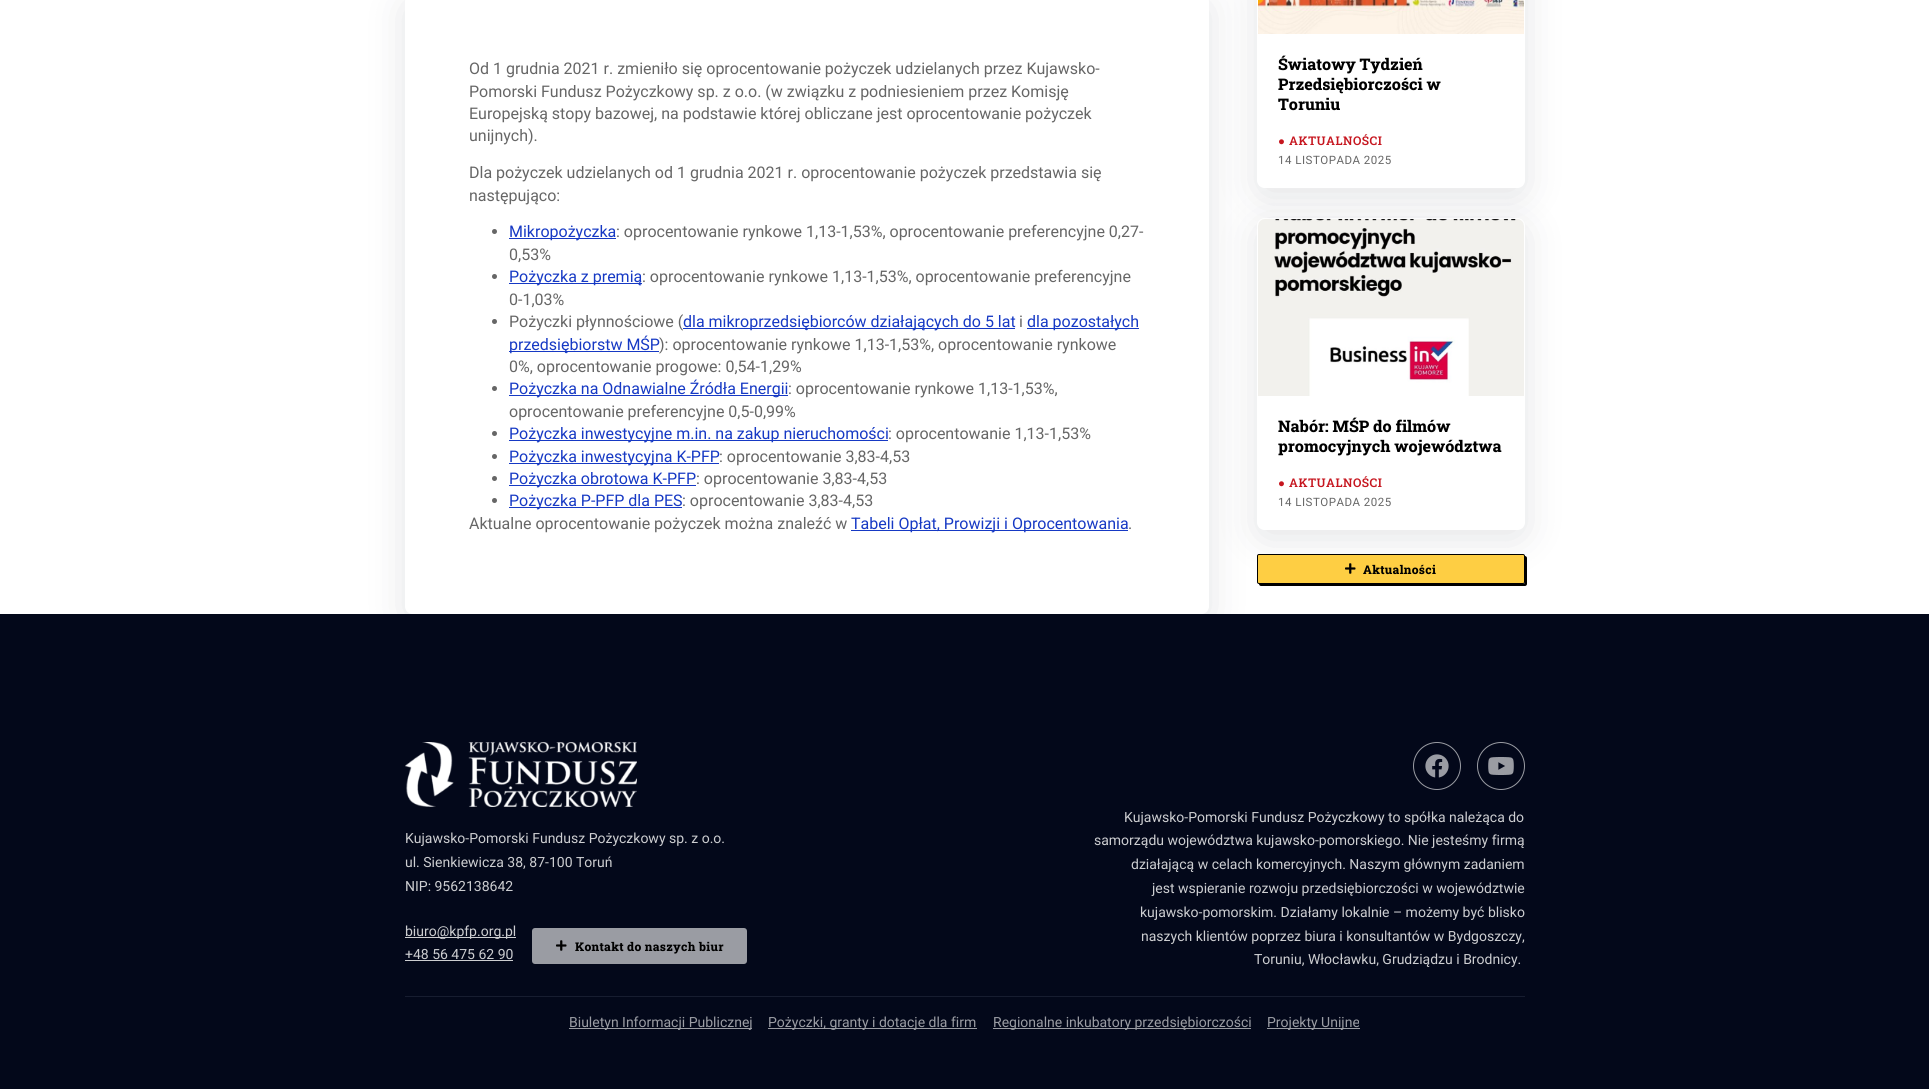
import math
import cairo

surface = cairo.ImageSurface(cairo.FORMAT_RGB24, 1929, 1089)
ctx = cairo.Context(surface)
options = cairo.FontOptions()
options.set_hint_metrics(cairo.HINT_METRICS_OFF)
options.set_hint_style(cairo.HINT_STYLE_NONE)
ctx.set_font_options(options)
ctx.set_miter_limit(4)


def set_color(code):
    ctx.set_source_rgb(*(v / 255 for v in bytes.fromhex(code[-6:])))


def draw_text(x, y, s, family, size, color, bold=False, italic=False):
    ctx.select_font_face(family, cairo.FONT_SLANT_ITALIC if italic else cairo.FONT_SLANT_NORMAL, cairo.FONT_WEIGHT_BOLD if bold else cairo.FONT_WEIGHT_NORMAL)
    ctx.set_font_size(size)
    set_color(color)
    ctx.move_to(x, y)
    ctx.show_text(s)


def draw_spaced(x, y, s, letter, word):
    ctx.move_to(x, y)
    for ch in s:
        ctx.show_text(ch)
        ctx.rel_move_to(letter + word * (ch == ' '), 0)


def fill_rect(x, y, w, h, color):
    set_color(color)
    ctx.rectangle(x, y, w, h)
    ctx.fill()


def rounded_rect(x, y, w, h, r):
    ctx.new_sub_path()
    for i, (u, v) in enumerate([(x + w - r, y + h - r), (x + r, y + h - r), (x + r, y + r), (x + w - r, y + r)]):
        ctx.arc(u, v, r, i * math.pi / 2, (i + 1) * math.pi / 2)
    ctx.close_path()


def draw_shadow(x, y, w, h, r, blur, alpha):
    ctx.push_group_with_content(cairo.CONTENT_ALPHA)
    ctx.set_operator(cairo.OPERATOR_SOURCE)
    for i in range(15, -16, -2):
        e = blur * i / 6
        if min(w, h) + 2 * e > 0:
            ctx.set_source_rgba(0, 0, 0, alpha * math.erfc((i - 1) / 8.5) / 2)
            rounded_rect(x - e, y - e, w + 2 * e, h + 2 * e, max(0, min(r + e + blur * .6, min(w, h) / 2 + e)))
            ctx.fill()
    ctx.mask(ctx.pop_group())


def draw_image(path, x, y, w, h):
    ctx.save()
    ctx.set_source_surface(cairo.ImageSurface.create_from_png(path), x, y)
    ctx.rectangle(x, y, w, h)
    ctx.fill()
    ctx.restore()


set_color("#ffffff")
ctx.paint()
ctx.save()
ctx.set_fill_rule(cairo.FILL_RULE_EVEN_ODD)
ctx.new_path()
ctx.move_to(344, 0)
ctx.line_to(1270, 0)
ctx.line_to(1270, 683)
ctx.line_to(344, 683)
ctx.close_path()
ctx.move_to(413, -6)
ctx.line_to(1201, -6)
ctx.curve_to(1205.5, -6, 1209, -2.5, 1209, 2)
ctx.line_to(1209, 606)
ctx.curve_to(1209, 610.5, 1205.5, 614, 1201, 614)
ctx.line_to(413, 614)
ctx.curve_to(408.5, 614, 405, 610.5, 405, 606)
ctx.line_to(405, 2)
ctx.curve_to(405, -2.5, 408.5, -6, 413, -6)
ctx.close_path()
ctx.clip()
set_color("#161c2d")
draw_shadow(405, 2, 804, 620, 8, 20, 0.12)
ctx.restore()
draw_text(469, 74, "Od 1 grudnia 2021 r. zmieniło się oprocentowanie pożyczek udzielanych przez Kujawsko-", "Roboto", 16, "#666666")
draw_text(469, 97, "Pomorski Fundusz Pożyczkowy sp. z o.o. (w związku z podniesieniem przez Komisję", "Roboto", 16, "#666666")
draw_text(469, 119, "Europejską stopy bazowej, na podstawie której obliczane jest oprocentowanie pożyczek", "Roboto", 16, "#666666")
draw_text(469, 141, "unijnych).", "Roboto", 16, "#666666")
draw_text(469, 178, "Dla pożyczek udzielanych od 1 grudnia 2021 r. oprocentowanie pożyczek przedstawia się", "Roboto", 16, "#666666")
draw_text(469, 201, "następująco:", "Roboto", 16, "#666666")
ctx.new_path()
ctx.arc(494.5, 231.5, 2.5, 0, 2 * math.pi)
ctx.fill()
fill_rect(509, 238, 107, 1, "#1639c4")
draw_text(509, 237, "Mikropożyczka", "Roboto", 16, "#1639c4")
draw_text(616, 237, ": oprocentowanie rynkowe 1,13-1,53%, oprocentowanie preferencyjne 0,27-", "Roboto", 16, "#666666")
draw_text(509, 260, "0,53%", "Roboto", 16, "#666666")
ctx.new_path()
ctx.arc(494.5, 276.5, 2.5, 0, 2 * math.pi)
ctx.fill()
fill_rect(509, 283, 133, 1, "#1639c4")
draw_text(509, 282, "Pożyczka z premią", "Roboto", 16, "#1639c4")
draw_text(642, 282, ": oprocentowanie rynkowe 1,13-1,53%, oprocentowanie preferencyjne", "Roboto", 16, "#666666")
draw_text(509, 305, "0-1,03%", "Roboto", 16, "#666666")
ctx.new_path()
ctx.arc(494.5, 321.5, 2.5, 0, 2 * math.pi)
ctx.fill()
draw_text(509, 327, "Pożyczki płynnościowe (", "Roboto", 16, "#666666")
fill_rect(683, 328, 332, 1, "#1639c4")
draw_text(683, 327, "dla mikroprzedsiębiorców działających do 5 lat", "Roboto", 16, "#1639c4")
draw_text(1019, 327, "i", "Roboto", 16, "#666666")
fill_rect(1027, 328, 112, 1, "#1639c4")
draw_text(1027, 327, "dla pozostałych", "Roboto", 16, "#1639c4")
fill_rect(509, 351, 150, 1, "#1639c4")
draw_text(509, 350, "przedsiębiorstw MŚP", "Roboto", 16, "#1639c4")
draw_text(659, 350, "): oprocentowanie rynkowe 1,13-1,53%, oprocentowanie rynkowe", "Roboto", 16, "#666666")
draw_text(509, 372, "0%, oprocentowanie progowe: 0,54-1,29%", "Roboto", 16, "#666666")
ctx.new_path()
ctx.arc(494.5, 388.5, 2.5, 0, 2 * math.pi)
ctx.fill()
fill_rect(509, 395, 279, 1, "#1639c4")
draw_text(509, 394, "Pożyczka na Odnawialne Źródła Energii", "Roboto", 16, "#1639c4")
draw_text(788, 394, ": oprocentowanie rynkowe 1,13-1,53%,", "Roboto", 16, "#666666")
draw_text(509, 417, "oprocentowanie preferencyjne 0,5-0,99%", "Roboto", 16, "#666666")
ctx.new_path()
ctx.arc(494.5, 433.5, 2.5, 0, 2 * math.pi)
ctx.fill()
fill_rect(509, 440, 379, 1, "#1639c4")
draw_text(509, 439, "Pożyczka inwestycyjne m.in. na zakup nieruchomości", "Roboto", 16, "#1639c4")
draw_text(888, 439, ": oprocentowanie 1,13-1,53%", "Roboto", 16, "#666666")
ctx.new_path()
ctx.arc(494.5, 456.5, 2.5, 0, 2 * math.pi)
ctx.fill()
fill_rect(509, 463, 210, 1, "#1639c4")
draw_text(509, 462, "Pożyczka inwestycyjna K-PFP", "Roboto", 16, "#1639c4")
draw_text(719, 462, ": oprocentowanie 3,83-4,53", "Roboto", 16, "#666666")
ctx.new_path()
ctx.arc(494.5, 478.5, 2.5, 0, 2 * math.pi)
ctx.fill()
fill_rect(509, 485, 187, 1, "#1639c4")
draw_text(509, 484, "Pożyczka obrotowa K-PFP", "Roboto", 16, "#1639c4")
draw_text(696, 484, ": oprocentowanie 3,83-4,53", "Roboto", 16, "#666666")
ctx.new_path()
ctx.arc(494.5, 500.5, 2.5, 0, 2 * math.pi)
ctx.fill()
fill_rect(509, 507, 173, 1, "#1639c4")
draw_text(509, 506, "Pożyczka P-PFP dla PES", "Roboto", 16, "#1639c4")
draw_text(682, 506, ": oprocentowanie 3,83-4,53", "Roboto", 16, "#666666")
draw_text(469, 529, "Aktualne oprocentowanie pożyczek można znaleźć w", "Roboto", 16, "#666666")
fill_rect(851, 530, 277, 1, "#1639c4")
draw_text(851, 529, "Tabeli Opłat, Prowizji i Oprocentowania", "Roboto", 16, "#1639c4")
draw_text(1128, 529, ".", "Roboto", 16, "#666666")
ctx.save()
ctx.set_fill_rule(cairo.FILL_RULE_EVEN_ODD)
ctx.new_path()
ctx.move_to(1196, 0)
ctx.line_to(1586, 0)
ctx.line_to(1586, 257)
ctx.line_to(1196, 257)
ctx.close_path()
ctx.move_to(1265, -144)
ctx.line_to(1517, -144)
ctx.curve_to(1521.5, -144, 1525, -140.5, 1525, -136)
ctx.line_to(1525, 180)
ctx.curve_to(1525, 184.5, 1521.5, 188, 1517, 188)
ctx.line_to(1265, 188)
ctx.curve_to(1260.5, 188, 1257, 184.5, 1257, 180)
ctx.line_to(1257, -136)
ctx.curve_to(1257, -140.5, 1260.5, -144, 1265, -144)
ctx.close_path()
ctx.clip()
set_color("#161c2d")
draw_shadow(1257, -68, 268, 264, 8, 20, 0.12)
ctx.restore()
draw_image("assets/img1.png", 1258, 0, 266, 34)
draw_text(1278, 70, "Światowy Tydzień", "Roboto Slab ExtraBold", 16, "#000000")
draw_text(1278, 90, "Przedsiębiorczości w", "Roboto Slab ExtraBold", 16, "#000000")
draw_text(1278, 110, "Toruniu", "Roboto Slab ExtraBold", 16, "#000000")
ctx.select_font_face("Liberation Sans", cairo.FONT_SLANT_NORMAL, cairo.FONT_WEIGHT_BOLD)
ctx.set_font_size(11.5)
set_color("#c6161f")
draw_spaced(1278, 145, "●", 0.5, 0)
ctx.select_font_face("Roboto Slab SemiBold")
ctx.set_font_size(12)
draw_spaced(1289, 145, "AKTUALNOŚCI", 0.5, 0)
ctx.select_font_face("Roboto")
ctx.set_font_size(11.5)
set_color("#666666")
draw_spaced(1278, 164, "14 LISTOPADA 2025", 0.5, 0)
ctx.save()
ctx.set_fill_rule(cairo.FILL_RULE_EVEN_ODD)
ctx.new_path()
ctx.move_to(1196, 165)
ctx.line_to(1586, 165)
ctx.line_to(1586, 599)
ctx.line_to(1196, 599)
ctx.close_path()
ctx.move_to(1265, 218)
ctx.line_to(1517, 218)
ctx.curve_to(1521.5, 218, 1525, 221.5, 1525, 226)
ctx.line_to(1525, 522)
ctx.curve_to(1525, 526.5, 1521.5, 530, 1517, 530)
ctx.line_to(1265, 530)
ctx.curve_to(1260.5, 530, 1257, 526.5, 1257, 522)
ctx.line_to(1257, 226)
ctx.curve_to(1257, 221.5, 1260.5, 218, 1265, 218)
ctx.close_path()
ctx.clip()
set_color("#161c2d")
draw_shadow(1257, 226, 268, 312, 8, 20, 0.12)
ctx.restore()
draw_image("assets/img2.png", 1258, 219, 266, 177)
draw_text(1278, 432, "Nabór: MŚP do filmów", "Roboto Slab ExtraBold", 16, "#000000")
draw_text(1278, 452, "promocyjnych województwa", "Roboto Slab ExtraBold", 16, "#000000")
ctx.select_font_face("Liberation Sans", cairo.FONT_SLANT_NORMAL, cairo.FONT_WEIGHT_BOLD)
ctx.set_font_size(11.5)
set_color("#c6161f")
draw_spaced(1278, 487, "●", 0.5, 0)
ctx.select_font_face("Roboto Slab SemiBold")
ctx.set_font_size(12)
draw_spaced(1289, 487, "AKTUALNOŚCI", 0.5, 0)
ctx.select_font_face("Roboto")
ctx.set_font_size(11.5)
set_color("#666666")
draw_spaced(1278, 506, "14 LISTOPADA 2025", 0.5, 0)
set_color("#000000")
ctx.new_path()
ctx.move_to(1259, 584)
ctx.curve_to(1259, 585, 1260, 586, 1261, 586)
ctx.line_to(1525, 586)
ctx.curve_to(1526, 586, 1527, 585, 1527, 584)
ctx.line_to(1527, 558)
ctx.curve_to(1527, 557, 1526, 556, 1525, 556)
ctx.line_to(1525, 582)
ctx.curve_to(1525, 583, 1524, 584, 1523, 584)
ctx.close_path()
ctx.fill()
set_color("#fece43")
rounded_rect(1257.5, 554.5, 267, 29, 1.5)
ctx.fill_preserve()
set_color("#000000")
ctx.set_line_width(1)
ctx.stroke()
draw_image("assets/img3.png", 1345, 563, 11, 11)
ctx.select_font_face("Roboto Slab ExtraBold")
ctx.set_font_size(12)
draw_spaced(1363, 574, "Aktualności", 0.3, 0)
fill_rect(0, 614, 1929, 475, "#03081a")
draw_image("assets/img4.png", 405, 742, 232, 65)
draw_text(405, 843, "Kujawsko-Pomorski Fundusz Pożyczkowy sp. z o.o.", "Roboto", 14, "#cdced1")
draw_text(405, 867, "ul. Sienkiewicza 38, 87-100 Toruń", "Roboto", 14, "#cdced1")
draw_text(405, 891, "NIP: 9562138642", "Roboto", 14, "#cdced1")
fill_rect(405, 937, 111, 1, "#cdced1")
draw_text(405, 936, "biuro@kpfp.org.pl", "Roboto", 14, "#cdced1")
draw_text(405, 959, "+48 56 475 62 90", "Roboto", 14, "#cdced1")
fill_rect(405, 960, 108, 1, "#cdced1")
set_color("#9a9ca3")
rounded_rect(532, 928, 215, 36, 3)
ctx.fill()
draw_image("assets/img5.png", 556, 940, 11, 11)
ctx.select_font_face("Roboto Slab ExtraBold")
ctx.set_font_size(12)
set_color("#000000")
draw_spaced(575, 951, "Kontakt do naszych biur", 0.3, 0)
ctx.new_path()
ctx.arc(1437, 766, 23.5, 0, 2 * math.pi)
set_color("#9a9ca3")
ctx.stroke()
draw_image("assets/img6.png", 1425, 754, 24, 24)
ctx.arc(1501, 766, 23.5, 0, 2 * math.pi)
ctx.stroke()
draw_image("assets/img7.png", 1488, 757, 26, 18)
draw_text(1124, 822, "Kujawsko-Pomorski Fundusz Pożyczkowy to spółka należąca do", "Roboto", 14, "#cdced1")
draw_text(1094, 845, "samorządu województwa kujawsko-pomorskiego. Nie jesteśmy firmą", "Roboto", 14, "#cdced1")
draw_text(1131, 869, "działającą w celach komercyjnych. Naszym głównym zadaniem", "Roboto", 14, "#cdced1")
draw_text(1152, 893, "jest wspieranie rozwoju przedsiębiorczości w województwie", "Roboto", 14, "#cdced1")
draw_text(1140, 917, "kujawsko-pomorskim. Działamy lokalnie – możemy być blisko", "Roboto", 14, "#cdced1")
draw_text(1141, 941, "naszych klientów poprzez biura i konsultantów w Bydgoszczy,", "Roboto", 14, "#cdced1")
draw_text(1254, 964, "Toruniu, Włocławku, Grudziądzu i Brodnicy.", "Roboto", 14, "#cdced1")
fill_rect(405, 996, 1120, 1, "#171d30")
fill_rect(569, 1028, 183, 1, "#9a9ca3")
draw_text(569, 1027, "Biuletyn Informacji Publicznej", "Roboto", 14, "#9b9da4")
fill_rect(768, 1028, 209, 1, "#9a9ca3")
draw_text(768, 1027, "Pożyczki, granty i dotacje dla firm", "Roboto", 14, "#9b9da4")
fill_rect(993, 1028, 258, 1, "#9a9ca3")
draw_text(993, 1027, "Regionalne inkubatory przedsiębiorczości", "Roboto", 14, "#9b9da4")
fill_rect(1267, 1028, 93, 1, "#9a9ca3")
draw_text(1267, 1027, "Projekty Unijne", "Roboto", 14, "#9b9da4")
surface.write_to_png("output.png")
